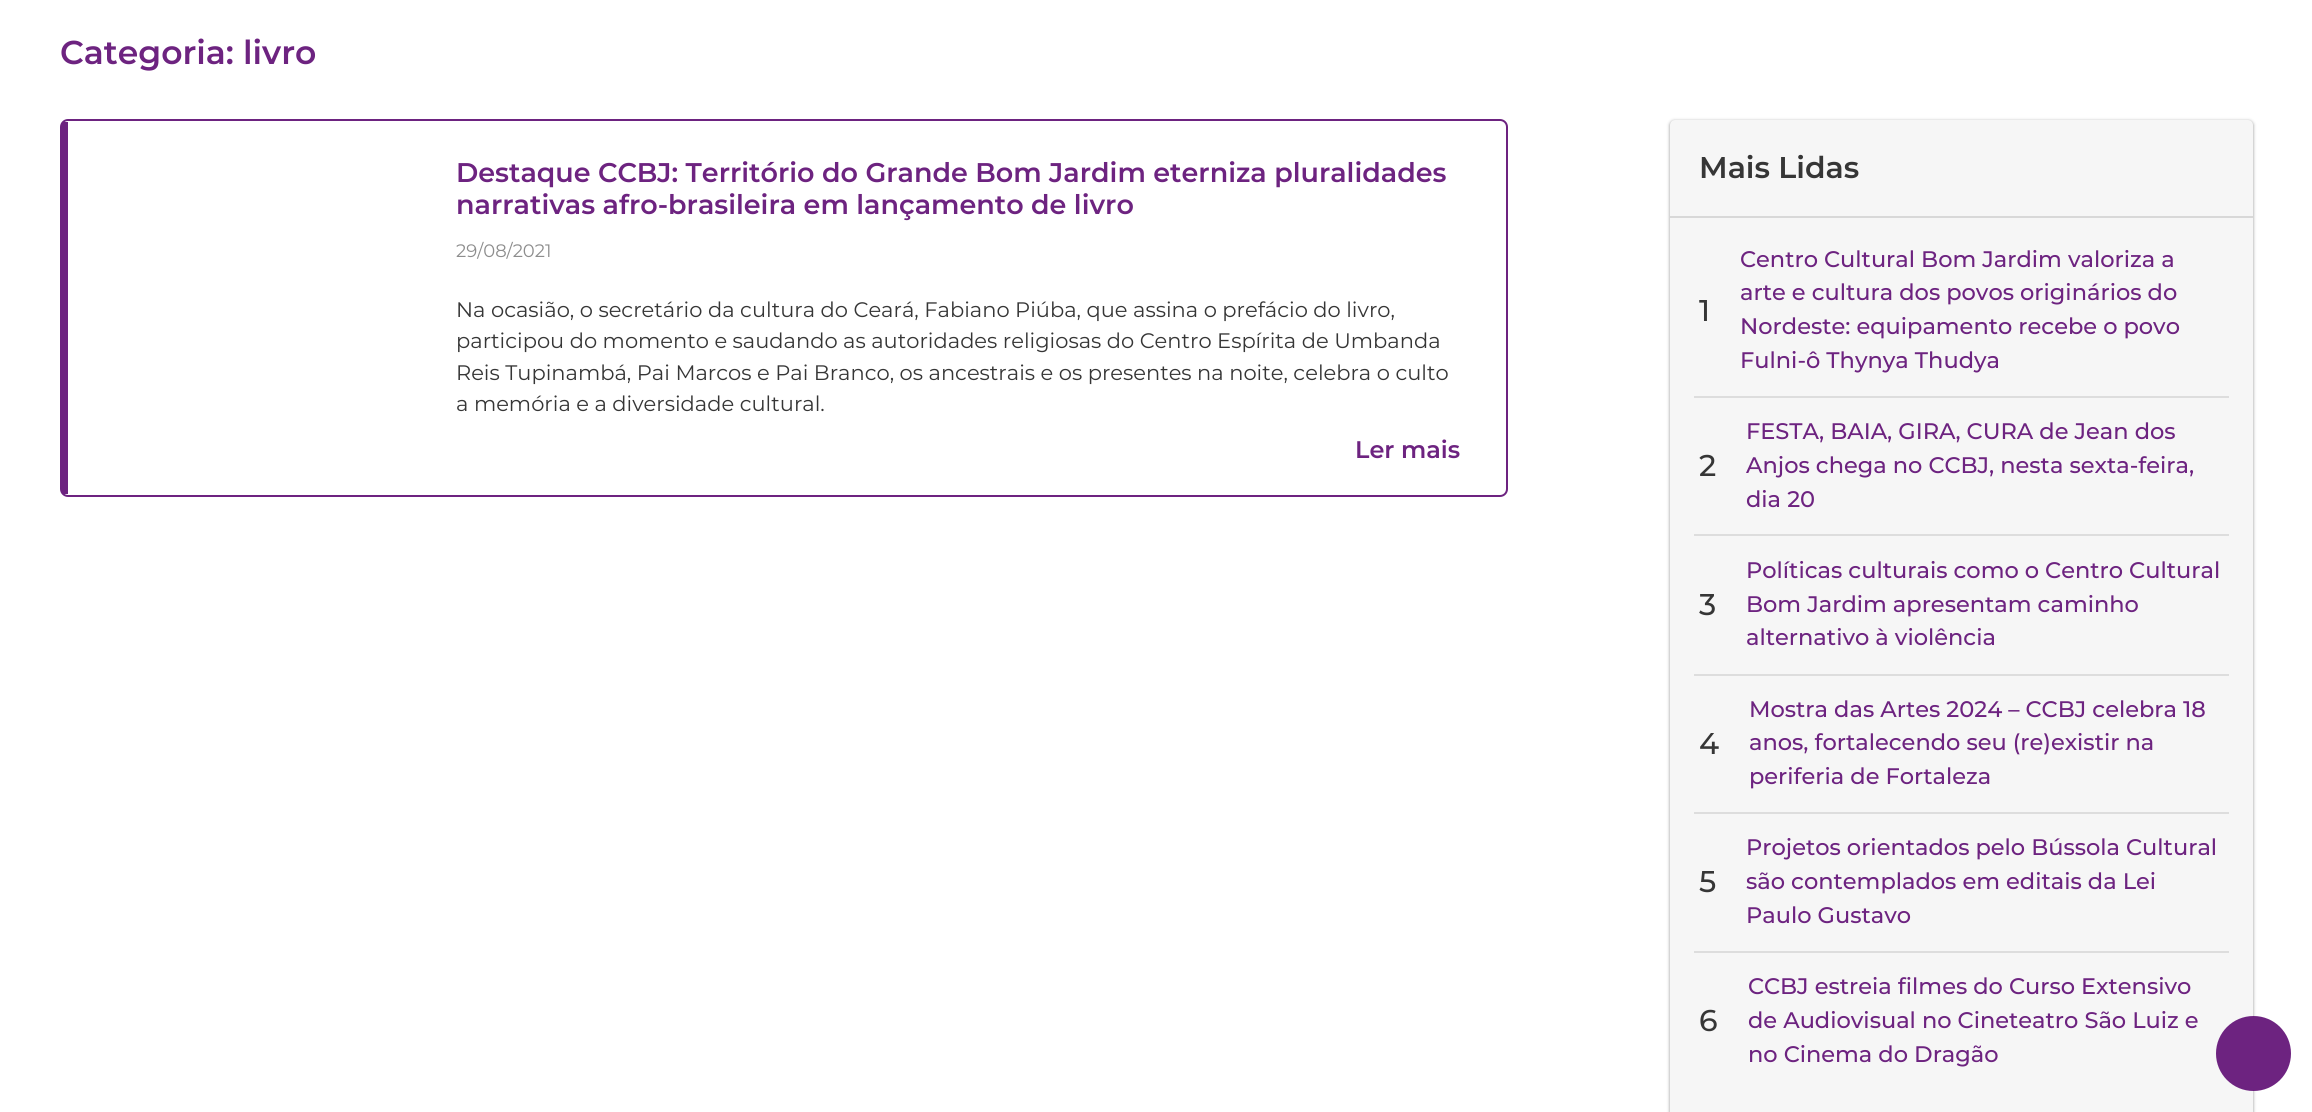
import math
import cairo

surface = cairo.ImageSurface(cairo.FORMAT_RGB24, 2312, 1112)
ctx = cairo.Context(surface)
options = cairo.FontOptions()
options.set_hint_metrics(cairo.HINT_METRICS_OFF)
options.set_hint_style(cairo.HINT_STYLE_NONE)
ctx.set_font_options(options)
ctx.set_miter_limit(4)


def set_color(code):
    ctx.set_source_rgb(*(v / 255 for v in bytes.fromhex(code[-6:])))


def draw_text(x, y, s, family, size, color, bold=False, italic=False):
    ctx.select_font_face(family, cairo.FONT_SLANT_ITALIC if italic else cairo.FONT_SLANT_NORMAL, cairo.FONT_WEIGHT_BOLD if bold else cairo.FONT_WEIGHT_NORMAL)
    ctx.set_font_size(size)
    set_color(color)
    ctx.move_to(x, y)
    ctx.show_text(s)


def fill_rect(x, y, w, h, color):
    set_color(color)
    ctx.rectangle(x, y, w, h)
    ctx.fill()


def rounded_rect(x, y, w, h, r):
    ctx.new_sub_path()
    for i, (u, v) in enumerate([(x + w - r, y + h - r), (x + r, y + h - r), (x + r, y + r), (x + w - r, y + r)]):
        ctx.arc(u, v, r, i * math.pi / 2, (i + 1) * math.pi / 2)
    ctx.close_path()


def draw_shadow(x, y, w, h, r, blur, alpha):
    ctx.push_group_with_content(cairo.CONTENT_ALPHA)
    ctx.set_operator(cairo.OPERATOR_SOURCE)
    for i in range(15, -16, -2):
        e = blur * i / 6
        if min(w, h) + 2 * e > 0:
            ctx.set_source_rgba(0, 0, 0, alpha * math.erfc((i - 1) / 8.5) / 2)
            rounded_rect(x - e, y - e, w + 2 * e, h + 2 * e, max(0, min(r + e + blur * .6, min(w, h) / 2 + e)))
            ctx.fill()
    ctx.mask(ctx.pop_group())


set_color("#ffffff")
ctx.paint()
draw_text(60, 64, "Categoria: livro", "Montserrat SemiBold", 33, "#6d2380")
rounded_rect(61, 120, 1446, 376, 7)
ctx.stroke()
fill_rect(62, 122, 6, 372, "#6d2380")
draw_text(456, 182, "Destaque CCBJ: Território do Grande Bom Jardim eterniza pluralidades", "Montserrat SemiBold", 27, "#6d2380")
draw_text(456, 214, "narrativas afro-brasileira em lançamento de livro", "Montserrat SemiBold", 27, "#6d2380")
draw_text(456, 257, "29/08/2021", "Montserrat", 18, "#8d8d8d")
draw_text(456, 317, "Na ocasião, o secretário da cultura do Ceará, Fabiano Piúba, que assina o prefácio do livro,", "Montserrat", 21, "#363636")
draw_text(456, 348, "participou do momento e saudando as autoridades religiosas do Centro Espírita de Umbanda", "Montserrat", 21, "#363636")
draw_text(456, 380, "Reis Tupinambá, Pai Marcos e Pai Branco, os ancestrais e os presentes na noite, celebra o culto", "Montserrat", 21, "#363636")
draw_text(456, 411, "a memória e a diversidade cultural.", "Montserrat", 21, "#363636")
draw_text(1355, 458, "Ler mais", "Montserrat SemiBold", 24, "#6d2380")
set_color("#000000")
draw_shadow(1671, 122, 581, 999, 3, 2, 0.75)
set_color("#f6f6f6")
rounded_rect(1670, 120, 583, 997, 5)
ctx.fill()
fill_rect(1670, 216, 583, 2, "#d8d8d8")
draw_text(1699, 178, "Mais Lidas", "Montserrat SemiBold", 30, "#363636")
draw_text(1699, 321, "1", "Montserrat Medium", 30, "#363636")
draw_text(1740, 267, "Centro Cultural Bom Jardim valoriza a", "Montserrat Medium", 22.5, "#6d2380")
draw_text(1740, 300, "arte e cultura dos povos originários do", "Montserrat Medium", 22.5, "#6d2380")
draw_text(1740, 334, "Nordeste: equipamento recebe o povo", "Montserrat Medium", 22.5, "#6d2380")
draw_text(1740, 368, "Fulni-ô Thynya Thudya", "Montserrat Medium", 22.5, "#6d2380")
fill_rect(1694, 396, 535, 2, "#dddddd")
draw_text(1699, 476, "2", "Montserrat Medium", 30, "#363636")
draw_text(1746, 439, "FESTA, BAIA, GIRA, CURA de Jean dos", "Montserrat Medium", 22.5, "#6d2380")
draw_text(1746, 473, "Anjos chega no CCBJ, nesta sexta-feira,", "Montserrat Medium", 22.5, "#6d2380")
draw_text(1746, 507, "dia 20", "Montserrat Medium", 22.5, "#6d2380")
fill_rect(1694, 534, 535, 2, "#dddddd")
draw_text(1699, 615, "3", "Montserrat Medium", 30, "#363636")
draw_text(1746, 578, "Políticas culturais como o Centro Cultural", "Montserrat Medium", 22.5, "#6d2380")
draw_text(1746, 612, "Bom Jardim apresentam caminho", "Montserrat Medium", 22.5, "#6d2380")
draw_text(1746, 645, "alternativo à violência", "Montserrat Medium", 22.5, "#6d2380")
fill_rect(1694, 674, 535, 2, "#dddddd")
draw_text(1699, 754, "4", "Montserrat Medium", 30, "#363636")
draw_text(1749, 717, "Mostra das Artes 2024 – CCBJ celebra 18", "Montserrat Medium", 22.5, "#6d2380")
draw_text(1749, 750, "anos, fortalecendo seu (re)existir na", "Montserrat Medium", 22.5, "#6d2380")
draw_text(1749, 784, "periferia de Fortaleza", "Montserrat Medium", 22.5, "#6d2380")
fill_rect(1694, 812, 535, 2, "#dddddd")
draw_text(1699, 892, "5", "Montserrat Medium", 30, "#363636")
draw_text(1746, 855, "Projetos orientados pelo Bússola Cultural", "Montserrat Medium", 22.5, "#6d2380")
draw_text(1746, 889, "são contemplados em editais da Lei", "Montserrat Medium", 22.5, "#6d2380")
draw_text(1746, 923, "Paulo Gustavo", "Montserrat Medium", 22.5, "#6d2380")
fill_rect(1694, 951, 535, 2, "#dddddd")
draw_text(1699, 1031, "6", "Montserrat Medium", 30, "#363636")
draw_text(1748, 994, "CCBJ estreia filmes do Curso Extensivo", "Montserrat Medium", 22.5, "#6d2380")
draw_text(1748, 1028, "de Audiovisual no Cineteatro São Luiz e", "Montserrat Medium", 22.5, "#6d2380")
draw_text(1748, 1062, "no Cinema do Dragão", "Montserrat Medium", 22.5, "#6d2380")
ctx.new_path()
ctx.arc(2253.5, 1053.5, 37.5, 0, 2 * math.pi)
ctx.fill()
surface.write_to_png("output.png")
